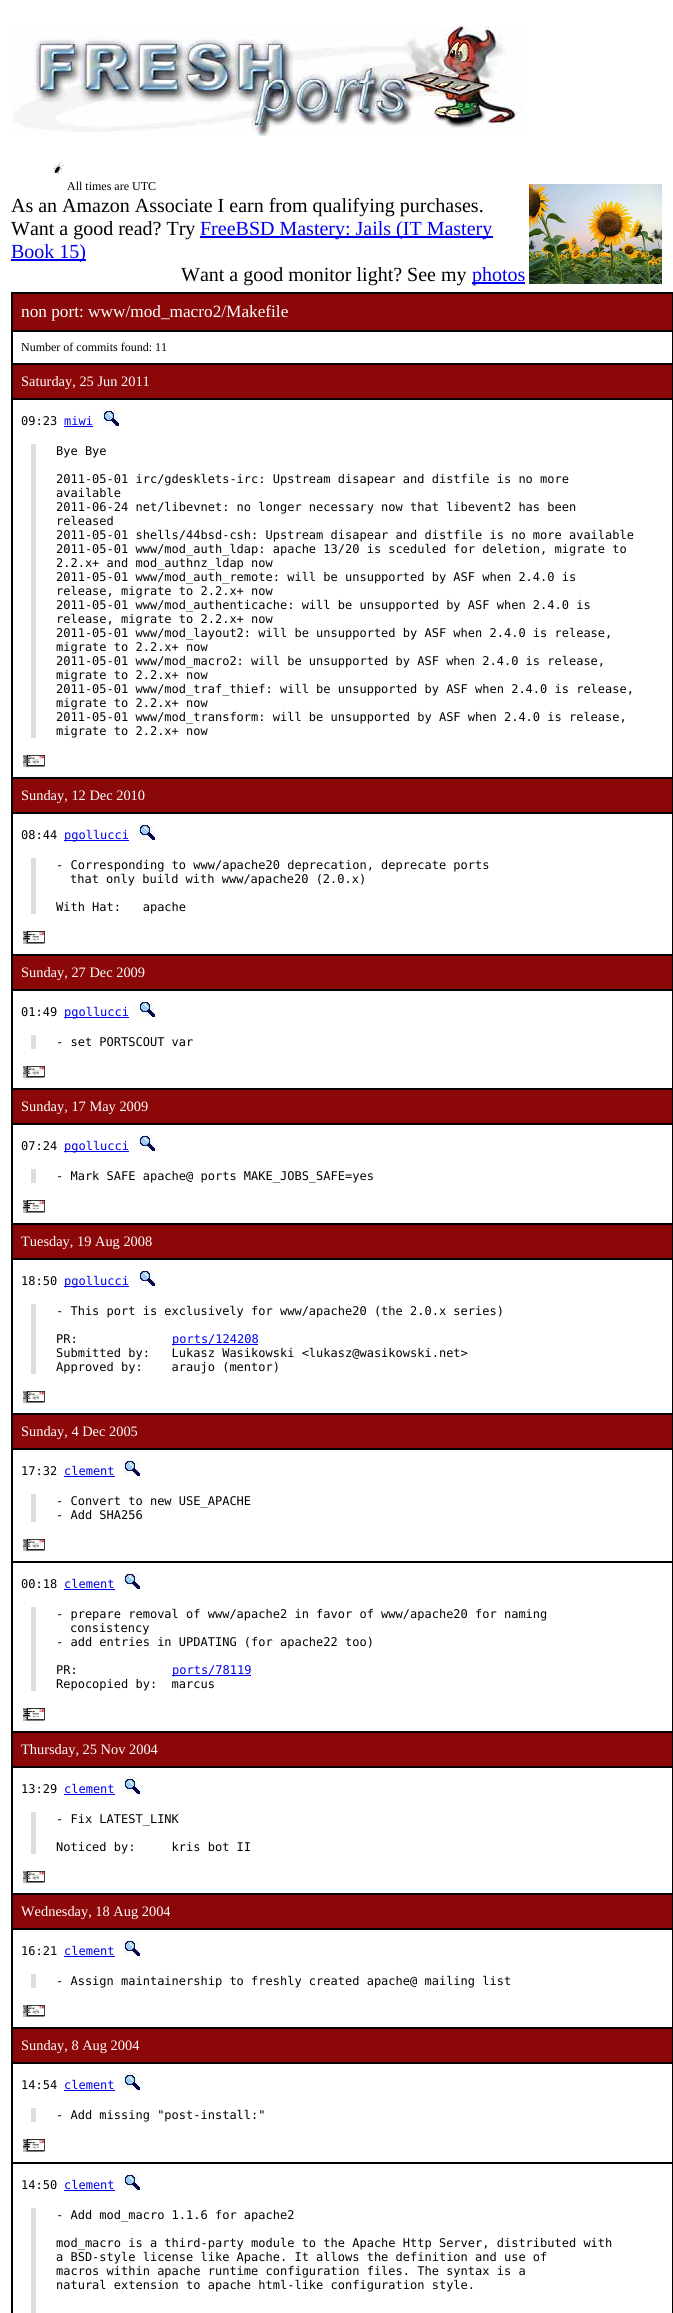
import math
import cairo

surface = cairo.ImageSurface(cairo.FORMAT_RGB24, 673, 2313)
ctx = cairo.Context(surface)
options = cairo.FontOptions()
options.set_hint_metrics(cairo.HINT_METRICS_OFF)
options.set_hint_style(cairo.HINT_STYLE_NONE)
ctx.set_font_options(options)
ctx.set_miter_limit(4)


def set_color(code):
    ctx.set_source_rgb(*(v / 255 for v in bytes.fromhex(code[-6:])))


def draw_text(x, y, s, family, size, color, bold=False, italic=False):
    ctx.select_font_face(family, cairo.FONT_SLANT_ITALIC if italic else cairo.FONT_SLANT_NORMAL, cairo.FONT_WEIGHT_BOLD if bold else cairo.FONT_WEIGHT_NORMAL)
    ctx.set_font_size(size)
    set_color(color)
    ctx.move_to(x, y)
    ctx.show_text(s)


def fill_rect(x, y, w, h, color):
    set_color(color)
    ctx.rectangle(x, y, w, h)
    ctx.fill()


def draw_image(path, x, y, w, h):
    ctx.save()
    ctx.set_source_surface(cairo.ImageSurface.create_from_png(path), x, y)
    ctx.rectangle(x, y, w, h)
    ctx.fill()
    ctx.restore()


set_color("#ffffff")
ctx.paint()
draw_image("assets/img1.png", 13, 26, 510, 110)
draw_image("assets/img2.png", 53, 162, 11, 12)
draw_text(67, 190, "All times are UTC", "Liberation Serif", 12, "#000000")
draw_text(11, 212, "As an Amazon Associate I earn from qualifying purchases.", "Liberation Serif", 20, "#000000")
draw_text(11, 235, "Want a good read? Try", "Liberation Serif", 20, "#000000")
fill_rect(200, 236, 293, 2, "#0000ee")
draw_text(200, 235, "FreeBSD Mastery: Jails (IT Mastery", "Liberation Serif", 20, "#0000ee")
fill_rect(11, 259, 75, 2, "#0000ee")
draw_text(11, 258, "Book 15)", "Liberation Serif", 20, "#0000ee")
draw_text(181, 281, "Want a good monitor light? See my", "Liberation Serif", 20, "#000000")
fill_rect(472, 282, 53, 2, "#0000ee")
draw_text(472, 281, "photos", "Liberation Serif", 20, "#0000ee")
draw_image("assets/img3.png", 529, 184, 133, 100)
ctx.rectangle(11.5, 292.5, 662, 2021)
set_color("#000000")
ctx.set_line_width(1)
ctx.stroke()
set_color("#8c0707")
ctx.rectangle(12.5, 293.5, 660, 37)
ctx.fill_preserve()
set_color("#000000")
ctx.stroke()
draw_text(21, 317, "non port: www/mod_macro2/Makefile", "Liberation Serif", 17.25, "#ffffff")
ctx.rectangle(12.5, 331.5, 660, 32)
set_color("#000000")
ctx.stroke()
draw_text(21, 351, "Number of commits found: 11", "Liberation Serif", 12, "#000000")
set_color("#8c0707")
ctx.rectangle(12.5, 364.5, 660, 34)
ctx.fill_preserve()
set_color("#000000")
ctx.stroke()
draw_text(21, 386, "Saturday, 25 Jun 2011", "Liberation Serif", 14.4, "#ffffff")
ctx.rectangle(12.5, 399.5, 660, 378)
set_color("#000000")
ctx.stroke()
draw_text(21, 425, "09:23", "DejaVu Sans Mono", 12, "#000000")
draw_text(64, 425, "miwi", "DejaVu Sans Mono", 12, "#0000ee")
fill_rect(64, 426, 29, 1, "#0000ee")
draw_image("assets/img4.png", 103, 410, 17, 17)
fill_rect(31, 444, 5, 294, "#dddddd")
draw_text(56, 455, "Bye Bye", "DejaVu Sans Mono", 12, "#000000")
draw_text(56, 483, "2011-05-01 irc/gdesklets-irc: Upstream disapear and distfile is no more", "DejaVu Sans Mono", 12, "#000000")
draw_text(56, 497, "available", "DejaVu Sans Mono", 12, "#000000")
draw_text(56, 511, "2011-06-24 net/libevnet: no longer necessary now that libevent2 has been", "DejaVu Sans Mono", 12, "#000000")
draw_text(56, 525, "released", "DejaVu Sans Mono", 12, "#000000")
draw_text(56, 539, "2011-05-01 shells/44bsd-csh: Upstream disapear and distfile is no more available", "DejaVu Sans Mono", 12, "#000000")
draw_text(56, 553, "2011-05-01 www/mod_auth_ldap: apache 13/20 is sceduled for deletion, migrate to", "DejaVu Sans Mono", 12, "#000000")
draw_text(56, 567, "2.2.x+ and mod_authnz_ldap now", "DejaVu Sans Mono", 12, "#000000")
draw_text(56, 581, "2011-05-01 www/mod_auth_remote: will be unsupported by ASF when 2.4.0 is", "DejaVu Sans Mono", 12, "#000000")
draw_text(56, 595, "release, migrate to 2.2.x+ now", "DejaVu Sans Mono", 12, "#000000")
draw_text(56, 609, "2011-05-01 www/mod_authenticache: will be unsupported by ASF when 2.4.0 is", "DejaVu Sans Mono", 12, "#000000")
draw_text(56, 623, "release, migrate to 2.2.x+ now", "DejaVu Sans Mono", 12, "#000000")
draw_text(56, 637, "2011-05-01 www/mod_layout2: will be unsupported by ASF when 2.4.0 is release,", "DejaVu Sans Mono", 12, "#000000")
draw_text(56, 651, "migrate to 2.2.x+ now", "DejaVu Sans Mono", 12, "#000000")
draw_text(56, 665, "2011-05-01 www/mod_macro2: will be unsupported by ASF when 2.4.0 is release,", "DejaVu Sans Mono", 12, "#000000")
draw_text(56, 679, "migrate to 2.2.x+ now", "DejaVu Sans Mono", 12, "#000000")
draw_text(56, 693, "2011-05-01 www/mod_traf_thief: will be unsupported by ASF when 2.4.0 is release,", "DejaVu Sans Mono", 12, "#000000")
draw_text(56, 707, "migrate to 2.2.x+ now", "DejaVu Sans Mono", 12, "#000000")
draw_text(56, 721, "2011-05-01 www/mod_transform: will be unsupported by ASF when 2.4.0 is release,", "DejaVu Sans Mono", 12, "#000000")
draw_text(56, 735, "migrate to 2.2.x+ now", "DejaVu Sans Mono", 12, "#000000")
draw_image("assets/img5.png", 23, 755, 22, 12)
set_color("#8c0707")
ctx.rectangle(12.5, 778.5, 660, 34)
ctx.fill_preserve()
set_color("#000000")
ctx.stroke()
draw_text(21, 800, "Sunday, 12 Dec 2010", "Liberation Serif", 14.4, "#ffffff")
ctx.rectangle(12.5, 813.5, 660, 141)
set_color("#000000")
ctx.stroke()
draw_text(21, 839, "08:44", "DejaVu Sans Mono", 12, "#000000")
fill_rect(64, 840, 65, 1, "#0000ee")
draw_text(64, 839, "pgollucci", "DejaVu Sans Mono", 12, "#0000ee")
draw_image("assets/img4.png", 139, 824, 17, 17)
fill_rect(31, 858, 5, 56, "#dddddd")
draw_text(56, 869, "- Corresponding to www/apache20 deprecation, deprecate ports", "DejaVu Sans Mono", 12, "#000000")
draw_text(70, 883, "that only build with www/apache20 (2.0.x)", "DejaVu Sans Mono", 12, "#000000")
draw_text(56, 911, "With Hat:   apache", "DejaVu Sans Mono", 12, "#000000")
draw_image("assets/img6.png", 23, 931, 22, 13)
set_color("#8c0707")
ctx.rectangle(12.5, 955.5, 660, 34)
ctx.fill_preserve()
set_color("#000000")
ctx.stroke()
draw_text(21, 977, "Sunday, 27 Dec 2009", "Liberation Serif", 14.4, "#ffffff")
ctx.rectangle(12.5, 990.5, 660, 98)
set_color("#000000")
ctx.stroke()
draw_text(21, 1016, "01:49", "DejaVu Sans Mono", 12, "#000000")
fill_rect(64, 1017, 65, 1, "#0000ee")
draw_text(64, 1016, "pgollucci", "DejaVu Sans Mono", 12, "#0000ee")
draw_image("assets/img4.png", 139, 1001, 17, 17)
fill_rect(31, 1035, 5, 14, "#dddddd")
draw_text(56, 1046, "- set PORTSCOUT var", "DejaVu Sans Mono", 12, "#000000")
draw_image("assets/img5.png", 23, 1066, 22, 12)
set_color("#8c0707")
ctx.rectangle(12.5, 1089.5, 660, 34)
ctx.fill_preserve()
set_color("#000000")
ctx.stroke()
draw_text(21, 1111, "Sunday, 17 May 2009", "Liberation Serif", 14.4, "#ffffff")
ctx.rectangle(12.5, 1124.5, 660, 99)
set_color("#000000")
ctx.stroke()
draw_text(21, 1150, "07:24", "DejaVu Sans Mono", 12, "#000000")
fill_rect(64, 1151, 65, 1, "#0000ee")
draw_text(64, 1150, "pgollucci", "DejaVu Sans Mono", 12, "#0000ee")
draw_image("assets/img4.png", 139, 1135, 17, 17)
fill_rect(31, 1169, 5, 14, "#dddddd")
draw_text(56, 1180, "- Mark SAFE apache@ ports MAKE_JOBS_SAFE=yes", "DejaVu Sans Mono", 12, "#000000")
draw_image("assets/img7.png", 23, 1200, 22, 13)
set_color("#8c0707")
ctx.rectangle(12.5, 1224.5, 660, 34)
ctx.fill_preserve()
set_color("#000000")
ctx.stroke()
draw_text(21, 1246, "Tuesday, 19 Aug 2008", "Liberation Serif", 14.4, "#ffffff")
ctx.rectangle(12.5, 1259.5, 660, 154)
set_color("#000000")
ctx.stroke()
draw_text(21, 1285, "18:50", "DejaVu Sans Mono", 12, "#000000")
fill_rect(64, 1286, 65, 1, "#0000ee")
draw_text(64, 1285, "pgollucci", "DejaVu Sans Mono", 12, "#0000ee")
draw_image("assets/img4.png", 139, 1270, 17, 17)
fill_rect(31, 1304, 5, 70, "#dddddd")
draw_text(56, 1315, "- This port is exclusively for www/apache20 (the 2.0.x series)", "DejaVu Sans Mono", 12, "#000000")
draw_text(56, 1343, "PR:", "DejaVu Sans Mono", 12, "#000000")
fill_rect(172, 1344, 86, 1, "#0000ee")
draw_text(172, 1343, "ports/124208", "DejaVu Sans Mono", 12, "#0000ee")
draw_text(56, 1357, "Submitted by:   Lukasz Wasikowski <lukasz@wasikowski.net>", "DejaVu Sans Mono", 12, "#000000")
draw_text(56, 1371, "Approved by:    araujo (mentor)", "DejaVu Sans Mono", 12, "#000000")
draw_image("assets/img5.png", 23, 1391, 22, 12)
set_color("#8c0707")
ctx.rectangle(12.5, 1414.5, 660, 34)
ctx.fill_preserve()
set_color("#000000")
ctx.stroke()
draw_text(21, 1436, "Sunday, 4 Dec 2005", "Liberation Serif", 14.4, "#ffffff")
ctx.rectangle(12.5, 1449.5, 660, 112)
set_color("#000000")
ctx.stroke()
draw_text(21, 1475, "17:32", "DejaVu Sans Mono", 12, "#000000")
draw_text(64, 1475, "clement", "DejaVu Sans Mono", 12, "#0000ee")
fill_rect(64, 1476, 51, 1, "#0000ee")
draw_image("assets/img4.png", 124, 1460, 17, 17)
fill_rect(31, 1494, 5, 28, "#dddddd")
draw_text(56, 1505, "- Convert to new USE_APACHE", "DejaVu Sans Mono", 12, "#000000")
draw_text(56, 1519, "- Add SHA256", "DejaVu Sans Mono", 12, "#000000")
draw_image("assets/img5.png", 23, 1539, 22, 12)
ctx.rectangle(12.5, 1562.5, 660, 169)
ctx.stroke()
draw_text(21, 1588, "00:18", "DejaVu Sans Mono", 12, "#000000")
draw_text(64, 1588, "clement", "DejaVu Sans Mono", 12, "#0000ee")
fill_rect(64, 1589, 51, 1, "#0000ee")
draw_image("assets/img4.png", 124, 1573, 17, 17)
fill_rect(31, 1607, 5, 84, "#dddddd")
draw_text(56, 1618, "- prepare removal of www/apache2 in favor of www/apache20 for naming", "DejaVu Sans Mono", 12, "#000000")
draw_text(70, 1632, "consistency", "DejaVu Sans Mono", 12, "#000000")
draw_text(56, 1646, "- add entries in UPDATING (for apache22 too)", "DejaVu Sans Mono", 12, "#000000")
draw_text(56, 1674, "PR:", "DejaVu Sans Mono", 12, "#000000")
fill_rect(172, 1675, 79, 1, "#0000ee")
draw_text(172, 1674, "ports/78119", "DejaVu Sans Mono", 12, "#0000ee")
draw_text(56, 1688, "Repocopied by:  marcus", "DejaVu Sans Mono", 12, "#000000")
draw_image("assets/img7.png", 23, 1708, 22, 13)
set_color("#8c0707")
ctx.rectangle(12.5, 1732.5, 660, 34)
ctx.fill_preserve()
set_color("#000000")
ctx.stroke()
draw_text(21, 1754, "Thursday, 25 Nov 2004", "Liberation Serif", 14.4, "#ffffff")
ctx.rectangle(12.5, 1767.5, 660, 126)
set_color("#000000")
ctx.stroke()
draw_text(21, 1793, "13:29", "DejaVu Sans Mono", 12, "#000000")
draw_text(64, 1793, "clement", "DejaVu Sans Mono", 12, "#0000ee")
fill_rect(64, 1794, 51, 1, "#0000ee")
draw_image("assets/img4.png", 124, 1778, 17, 17)
fill_rect(31, 1812, 5, 42, "#dddddd")
draw_text(56, 1823, "- Fix LATEST_LINK", "DejaVu Sans Mono", 12, "#000000")
draw_text(56, 1851, "Noticed by:     kris bot II", "DejaVu Sans Mono", 12, "#000000")
draw_image("assets/img5.png", 23, 1871, 22, 12)
set_color("#8c0707")
ctx.rectangle(12.5, 1894.5, 660, 34)
ctx.fill_preserve()
set_color("#000000")
ctx.stroke()
draw_text(21, 1916, "Wednesday, 18 Aug 2004", "Liberation Serif", 14.4, "#ffffff")
ctx.rectangle(12.5, 1929.5, 660, 98)
set_color("#000000")
ctx.stroke()
draw_text(21, 1955, "16:21", "DejaVu Sans Mono", 12, "#000000")
draw_text(64, 1955, "clement", "DejaVu Sans Mono", 12, "#0000ee")
fill_rect(64, 1956, 51, 1, "#0000ee")
draw_image("assets/img4.png", 124, 1940, 17, 17)
fill_rect(31, 1974, 5, 14, "#dddddd")
draw_text(56, 1985, "- Assign maintainership to freshly created apache@ mailing list", "DejaVu Sans Mono", 12, "#000000")
draw_image("assets/img5.png", 23, 2005, 22, 12)
set_color("#8c0707")
ctx.rectangle(12.5, 2028.5, 660, 34)
ctx.fill_preserve()
set_color("#000000")
ctx.stroke()
draw_text(21, 2050, "Sunday, 8 Aug 2004", "Liberation Serif", 14.4, "#ffffff")
ctx.rectangle(12.5, 2063.5, 660, 99)
set_color("#000000")
ctx.stroke()
draw_text(21, 2089, "14:54", "DejaVu Sans Mono", 12, "#000000")
draw_text(64, 2089, "clement", "DejaVu Sans Mono", 12, "#0000ee")
fill_rect(64, 2090, 51, 1, "#0000ee")
draw_image("assets/img4.png", 124, 2074, 17, 17)
fill_rect(31, 2108, 5, 14, "#dddddd")
draw_text(56, 2119, "- Add missing \"post-install:\"", "DejaVu Sans Mono", 12, "#000000")
draw_image("assets/img6.png", 23, 2139, 22, 13)
ctx.rectangle(12.5, 2163.5, 660, 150)
ctx.stroke()
draw_text(21, 2189, "14:50", "DejaVu Sans Mono", 12, "#000000")
draw_text(64, 2189, "clement", "DejaVu Sans Mono", 12, "#0000ee")
fill_rect(64, 2190, 51, 1, "#0000ee")
draw_image("assets/img4.png", 124, 2174, 17, 17)
fill_rect(31, 2208, 5, 105, "#dddddd")
draw_text(56, 2219, "- Add mod_macro 1.1.6 for apache2", "DejaVu Sans Mono", 12, "#000000")
draw_text(56, 2247, "mod_macro is a third-party module to the Apache Http Server, distributed with", "DejaVu Sans Mono", 12, "#000000")
draw_text(56, 2261, "a BSD-style license like Apache. It allows the definition and use of", "DejaVu Sans Mono", 12, "#000000")
draw_text(56, 2275, "macros within apache runtime configuration files. The syntax is a", "DejaVu Sans Mono", 12, "#000000")
draw_text(56, 2289, "natural extension to apache html-like configuration style.", "DejaVu Sans Mono", 12, "#000000")
surface.write_to_png("output.png")
